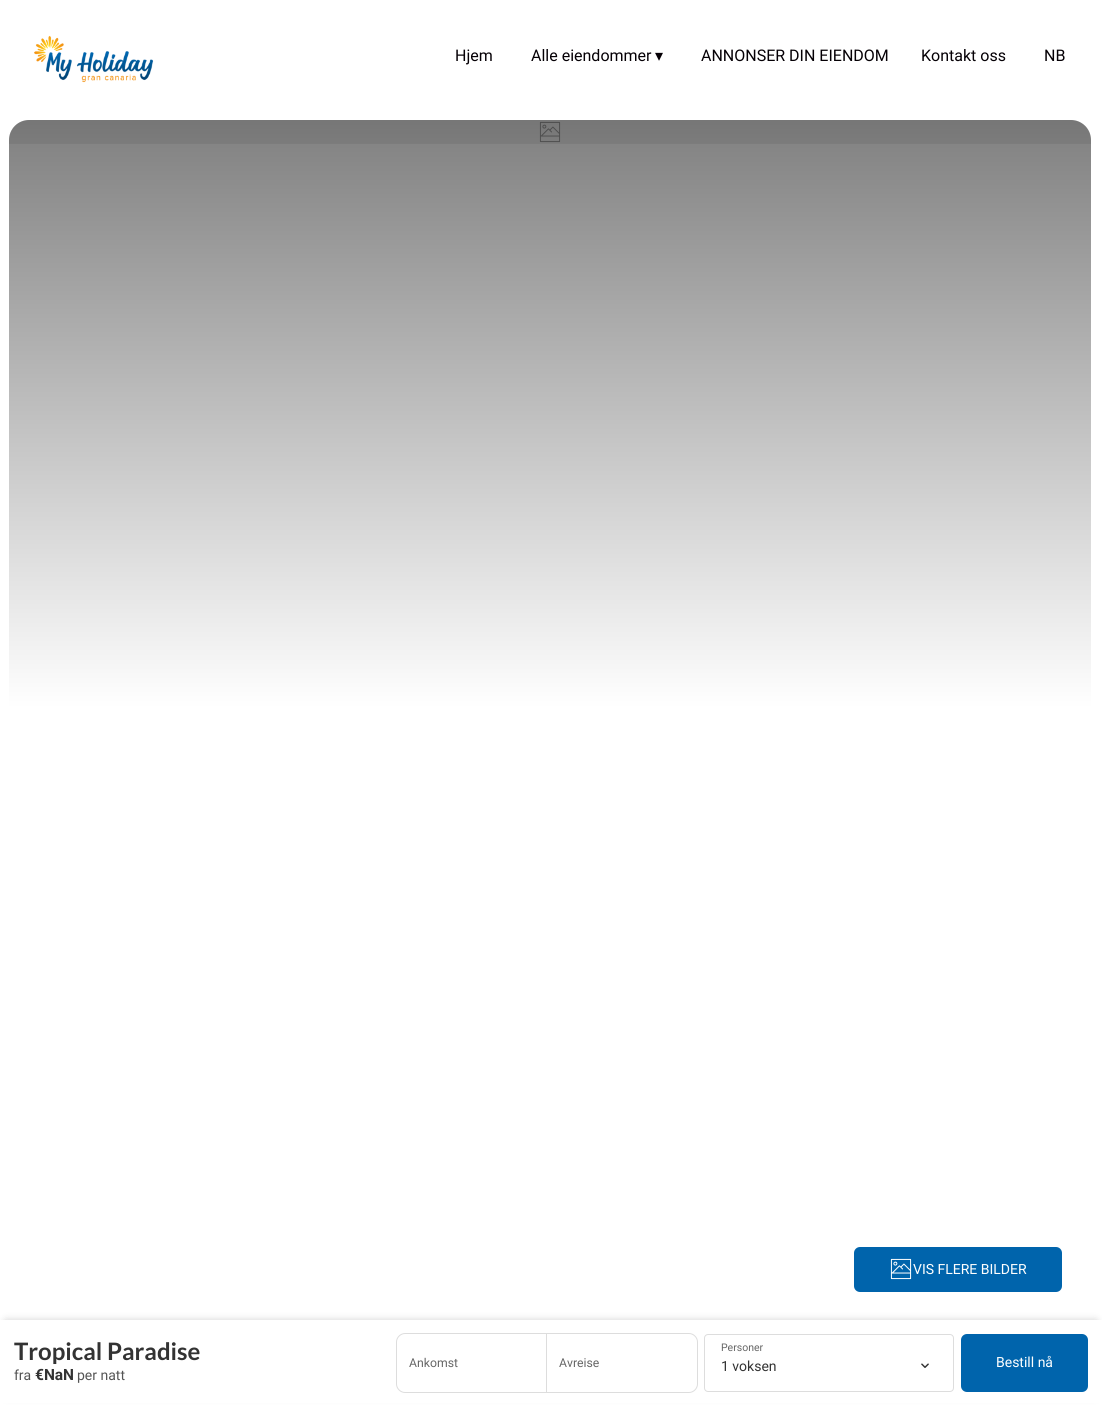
import math
import cairo

surface = cairo.ImageSurface(cairo.FORMAT_RGB24, 1102, 1405)
ctx = cairo.Context(surface)
options = cairo.FontOptions()
options.set_hint_metrics(cairo.HINT_METRICS_OFF)
options.set_hint_style(cairo.HINT_STYLE_NONE)
ctx.set_font_options(options)
ctx.set_miter_limit(4)


def set_color(code):
    ctx.set_source_rgb(*(v / 255 for v in bytes.fromhex(code[-6:])))


def draw_text(x, y, s, family, size, color, bold=False, italic=False):
    ctx.select_font_face(family, cairo.FONT_SLANT_ITALIC if italic else cairo.FONT_SLANT_NORMAL, cairo.FONT_WEIGHT_BOLD if bold else cairo.FONT_WEIGHT_NORMAL)
    ctx.set_font_size(size)
    set_color(color)
    ctx.move_to(x, y)
    ctx.show_text(s)


def fill_rect(x, y, w, h, color):
    set_color(color)
    ctx.rectangle(x, y, w, h)
    ctx.fill()


def rounded_rect(x, y, w, h, r):
    ctx.new_sub_path()
    for i, (u, v) in enumerate([(x + w - r, y + h - r), (x + r, y + h - r), (x + r, y + r), (x + w - r, y + r)]):
        ctx.arc(u, v, r, i * math.pi / 2, (i + 1) * math.pi / 2)
    ctx.close_path()


def draw_shadow(x, y, w, h, r, blur, alpha):
    ctx.push_group_with_content(cairo.CONTENT_ALPHA)
    ctx.set_operator(cairo.OPERATOR_SOURCE)
    for i in range(15, -16, -2):
        e = blur * i / 6
        if min(w, h) + 2 * e > 0:
            ctx.set_source_rgba(0, 0, 0, alpha * math.erfc((i - 1) / 8.5) / 2)
            rounded_rect(x - e, y - e, w + 2 * e, h + 2 * e, max(0, min(r + e + blur * .6, min(w, h) / 2 + e)))
            ctx.fill()
    ctx.mask(ctx.pop_group())


def draw_image(path, x, y, w, h):
    ctx.save()
    ctx.set_source_surface(cairo.ImageSurface.create_from_png(path), x, y)
    ctx.rectangle(x, y, w, h)
    ctx.fill()
    ctx.restore()


set_color("#ffffff")
ctx.paint()
draw_image("assets/img1.png", 34, 35, 120, 48)
draw_text(455, 61, "Hjem", "Roboto", 16, "#050005")
draw_text(531, 61, "Alle eiendommer", "Roboto", 16, "#050005")
draw_text(655, 61, "▾", "DejaVu Sans", 16, "#050005")
draw_text(701, 61, "ANNONSER DIN EIENDOM", "Roboto", 16, "#050005")
draw_text(921, 61, "Kontakt oss", "Roboto", 16, "#050005")
draw_text(1044, 61, "NB", "Roboto", 16, "#050005")
set_color("#eeeeee")
ctx.new_path()
ctx.move_to(29, 120)
ctx.line_to(1071, 120)
ctx.curve_to(1082, 120, 1091, 129, 1091, 140)
ctx.line_to(1091, 144)
ctx.line_to(9, 144)
ctx.line_to(9, 140)
ctx.curve_to(9, 129, 18, 120, 29, 120)
ctx.close_path()
ctx.fill()
draw_image("assets/img2.png", 539, 121, 22, 22)
gradient = cairo.LinearGradient(550, 1320, 550, 120)
gradient.add_color_stop_rgba(0.51, 0, 0, 0, 0)
gradient.add_color_stop_rgba(1, 0, 0, 0, 0.5)
ctx.set_source(gradient)
rounded_rect(9, 120, 1082, 1200, 20)
ctx.fill()
set_color("#0064ac")
rounded_rect(854, 1247, 208, 45, 6)
ctx.fill()
draw_image("assets/img3.png", 890, 1258, 22, 22)
draw_text(913, 1274, "VIS FLERE BILDER", "Roboto", 14, "#ffffff")
set_color("#000000")
draw_shadow(6, 1322, 1090, 73, 0, 4.5, 0.29)
fill_rect(0, 1320, 1102, 83, "#ffffff")
draw_text(14, 1360, "Tropical Paradise", "Lato", 24, "#333333", bold=True)
draw_text(14, 1380, "fra", "Roboto", 14, "#555555")
draw_text(35, 1380, "€NaN", "Roboto", 15.5, "#333333", bold=True)
draw_text(77, 1380, "per natt", "Roboto", 14, "#555555")
ctx.new_path()
ctx.move_to(405, 1333.5)
ctx.line_to(547.5, 1333.5)
ctx.line_to(547.5, 1392.5)
ctx.line_to(405, 1392.5)
ctx.curve_to(400.5, 1392.5, 396.5, 1388.5, 396.5, 1384)
ctx.line_to(396.5, 1342)
ctx.curve_to(396.5, 1337.5, 400.5, 1333.5, 405, 1333.5)
ctx.close_path()
set_color("#dddddd")
ctx.set_line_width(1)
ctx.stroke()
draw_text(409, 1367, "Ankomst", "Roboto", 12.25, "#666666")
set_color("#ffffff")
ctx.new_path()
ctx.move_to(546.5, 1333.5)
ctx.line_to(689, 1333.5)
ctx.curve_to(693.5, 1333.5, 697.5, 1337.5, 697.5, 1342)
ctx.line_to(697.5, 1384)
ctx.curve_to(697.5, 1388.5, 693.5, 1392.5, 689, 1392.5)
ctx.line_to(546.5, 1392.5)
ctx.close_path()
ctx.fill_preserve()
set_color("#dddddd")
ctx.stroke()
draw_text(559, 1367, "Avreise", "Roboto", 12.25, "#666666")
rounded_rect(704.5, 1334.5, 249, 57, 3.5)
set_color("#dddddd")
ctx.stroke()
draw_text(721, 1351, "Personer", "Roboto", 10.5, "#666666")
draw_text(721, 1371, "1 voksen", "Roboto", 14, "#333333")
draw_image("assets/img4.png", 921, 1363, 8, 5)
set_color("#0064ac")
rounded_rect(961, 1334, 127, 58, 6)
ctx.fill()
draw_text(996, 1367, "Bestill nå", "Roboto", 14, "#ffffff")
surface.write_to_png("output.png")
